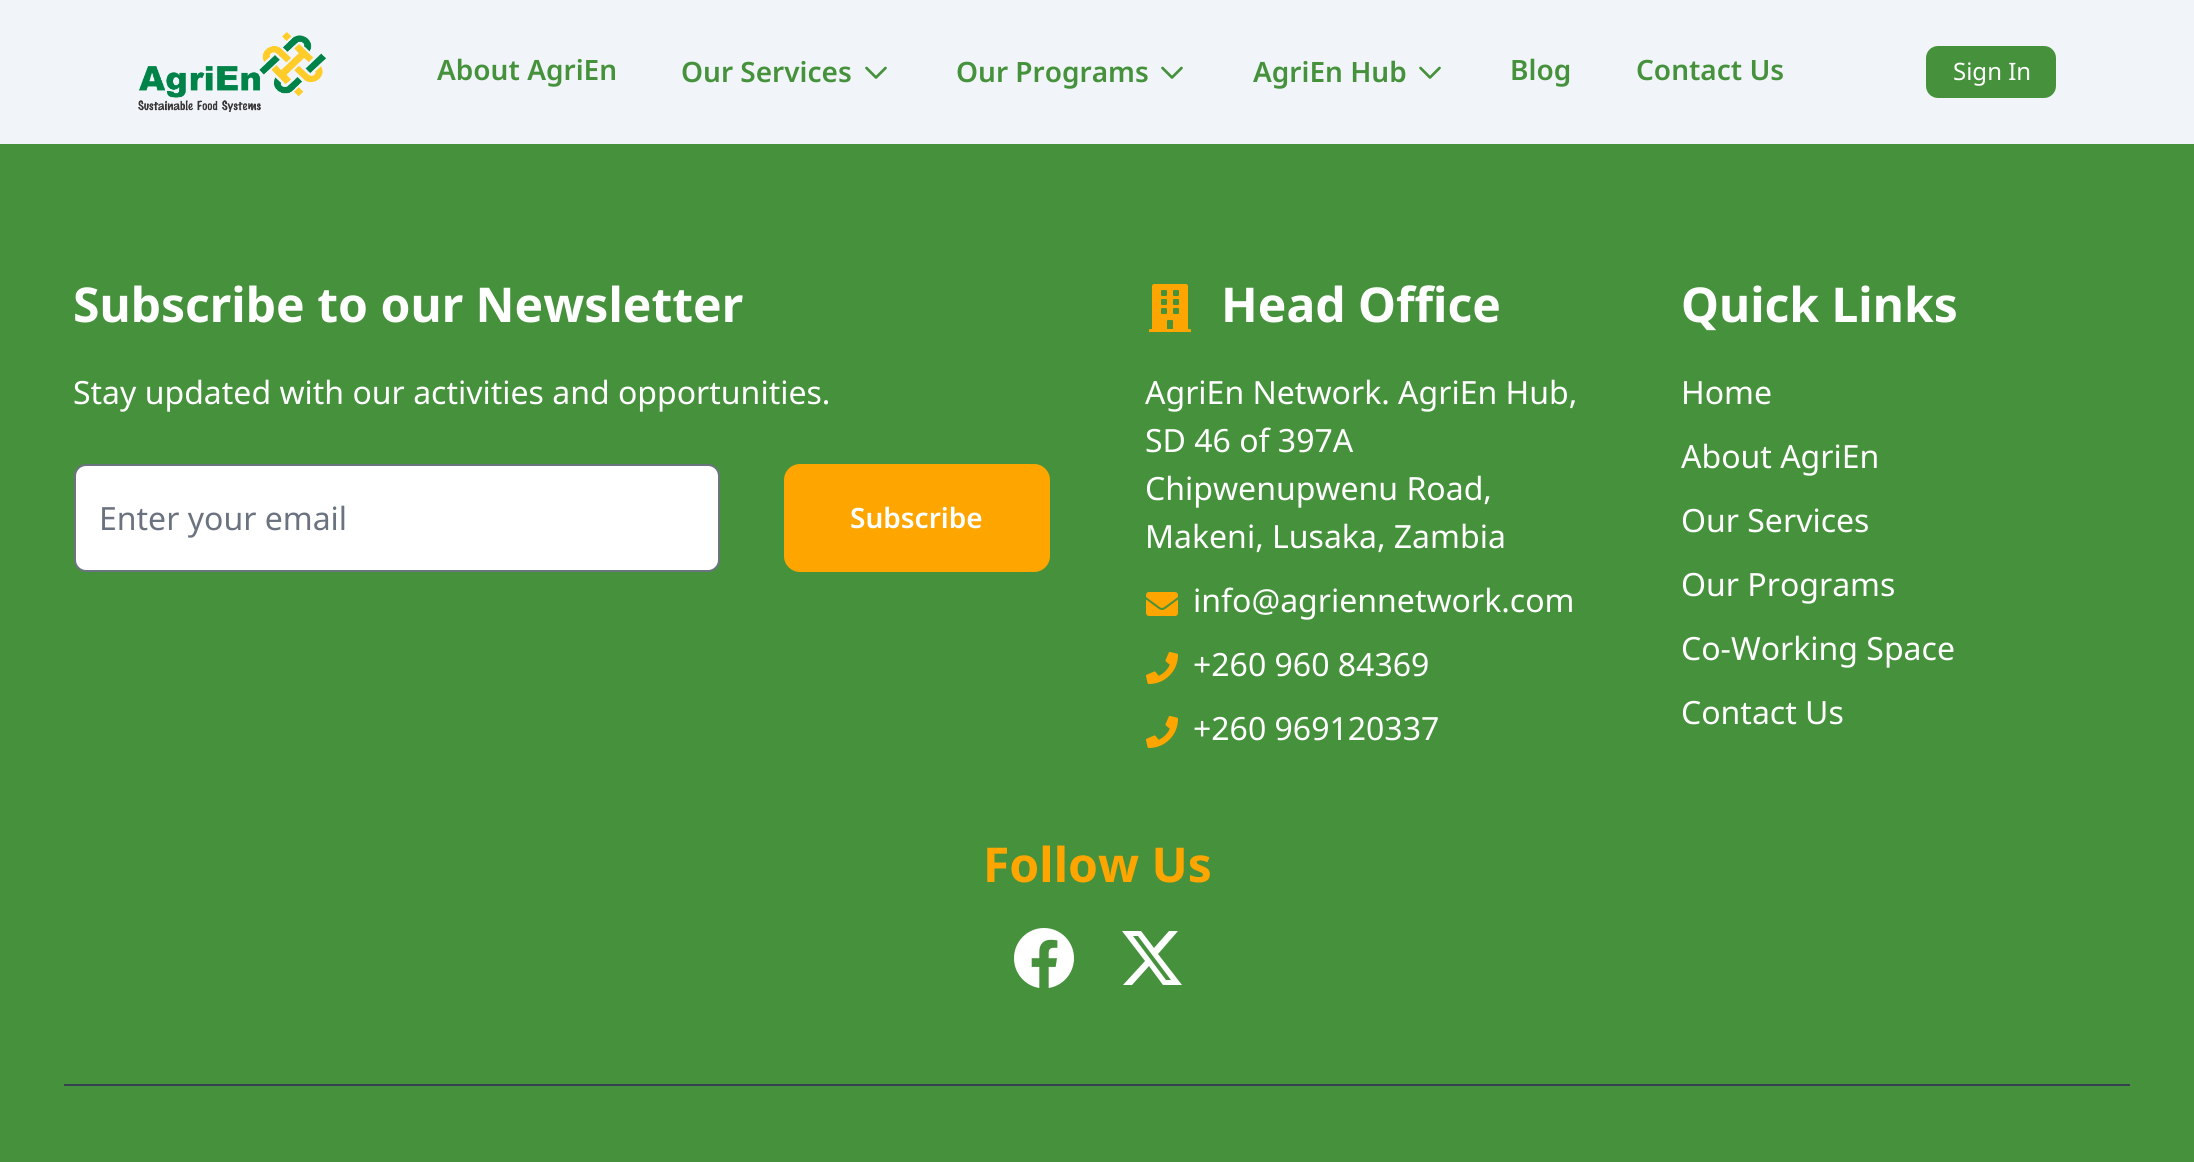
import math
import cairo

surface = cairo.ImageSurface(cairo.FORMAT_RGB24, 2194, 1162)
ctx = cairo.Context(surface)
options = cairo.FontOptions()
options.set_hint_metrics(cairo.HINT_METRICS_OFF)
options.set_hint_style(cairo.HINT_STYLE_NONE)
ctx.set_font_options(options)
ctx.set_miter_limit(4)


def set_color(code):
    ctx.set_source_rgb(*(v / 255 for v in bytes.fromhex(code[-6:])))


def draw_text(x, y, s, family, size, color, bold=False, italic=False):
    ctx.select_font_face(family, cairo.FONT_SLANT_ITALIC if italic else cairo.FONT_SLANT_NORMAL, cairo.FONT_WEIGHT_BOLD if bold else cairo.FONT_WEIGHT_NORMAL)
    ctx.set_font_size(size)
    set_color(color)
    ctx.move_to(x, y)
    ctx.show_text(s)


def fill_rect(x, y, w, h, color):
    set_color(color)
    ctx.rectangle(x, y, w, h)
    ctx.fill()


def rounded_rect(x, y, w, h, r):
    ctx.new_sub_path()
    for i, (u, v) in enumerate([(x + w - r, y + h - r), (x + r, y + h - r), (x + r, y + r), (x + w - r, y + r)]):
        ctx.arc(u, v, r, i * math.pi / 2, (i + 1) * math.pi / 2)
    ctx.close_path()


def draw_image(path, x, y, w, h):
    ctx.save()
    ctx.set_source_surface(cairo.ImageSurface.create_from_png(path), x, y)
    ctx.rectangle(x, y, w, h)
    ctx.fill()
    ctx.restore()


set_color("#f1f5f9")
ctx.paint()
draw_image("assets/img1.png", 138, 32, 188, 80)
draw_text(437, 80, "About AgriEn", "Noto Sans SemiBold", 28, "#46923c")
draw_text(681, 82, "Our Services", "Noto Sans SemiBold", 28, "#46923c")
ctx.new_path()
ctx.move_to(885.5, 68)
ctx.line_to(876, 77.5)
ctx.line_to(866.5, 68)
ctx.set_line_width(2.7)
ctx.set_line_cap(cairo.LINE_CAP_ROUND)
ctx.set_line_join(cairo.LINE_JOIN_ROUND)
ctx.stroke()
draw_text(956, 82, "Our Programs", "Noto Sans SemiBold", 28, "#46923c")
ctx.new_path()
ctx.move_to(1181.5, 68)
ctx.line_to(1172, 77.5)
ctx.line_to(1162.5, 68)
ctx.stroke()
draw_text(1253, 82, "AgriEn Hub", "Noto Sans SemiBold", 28, "#46923c")
ctx.new_path()
ctx.move_to(1439.5, 68)
ctx.line_to(1430, 77.5)
ctx.line_to(1420.5, 68)
ctx.stroke()
draw_text(1510, 80, "Blog", "Noto Sans SemiBold", 28, "#46923c")
draw_text(1636, 80, "Contact Us", "Noto Sans SemiBold", 28, "#46923c")
rounded_rect(1927, 47, 128, 50, 11)
ctx.fill_preserve()
ctx.set_line_width(2)
ctx.set_line_cap(cairo.LINE_CAP_BUTT)
ctx.set_line_join(cairo.LINE_JOIN_MITER)
ctx.stroke()
draw_text(1953, 80, "Sign In", "Noto Sans", 24, "#ffffff")
fill_rect(0, 144, 2194, 1018, "#46923c")
draw_text(73, 322, "Subscribe to our Newsletter", "Noto Sans", 48, "#ffffff", bold=True)
draw_text(73, 404, "Stay updated with our activities and opportunities.", "Noto Sans", 32, "#ffffff")
rounded_rect(75, 465, 644, 106, 11)
ctx.fill_preserve()
set_color("#6b7280")
ctx.stroke()
draw_text(99, 530, "Enter your email", "Noto Sans", 32, "#6b7280")
set_color("#ffa500")
rounded_rect(784, 464, 266, 108, 16)
ctx.fill()
draw_text(850, 528, "Subscribe", "Noto Sans SemiBold", 28, "#ffffff")
draw_image("assets/img2.png", 1149, 284, 42, 48)
draw_text(1221, 322, "Head Office", "Noto Sans", 48, "#ffffff", bold=True)
draw_text(1145, 404, "AgriEn Network. AgriEn Hub,", "Noto Sans", 32, "#ffffff")
draw_text(1145, 452, "SD 46 of 397A", "Noto Sans", 32, "#ffffff")
draw_text(1145, 500, "Chipwenupwenu Road,", "Noto Sans", 32, "#ffffff")
draw_text(1145, 548, "Makeni, Lusaka, Zambia", "Noto Sans", 32, "#ffffff")
draw_image("assets/img3.png", 1146, 592, 32, 24)
draw_text(1193, 612, "info@agriennetwork.com", "Noto Sans", 32, "#ffffff")
draw_image("assets/img4.png", 1146, 652, 32, 32)
draw_text(1193, 676, "+260 960 84369", "Noto Sans", 32, "#ffffff")
draw_image("assets/img4.png", 1146, 716, 32, 32)
draw_text(1193, 740, "+260 969120337", "Noto Sans", 32, "#ffffff")
draw_text(1681, 322, "Quick Links", "Noto Sans", 48, "#ffffff", bold=True)
draw_text(1681, 404, "Home", "Noto Sans", 32, "#ffffff")
draw_text(1681, 468, "About AgriEn", "Noto Sans", 32, "#ffffff")
draw_text(1681, 532, "Our Services", "Noto Sans", 32, "#ffffff")
draw_text(1681, 596, "Our Programs", "Noto Sans", 32, "#ffffff")
draw_text(1681, 660, "Co-Working Space", "Noto Sans", 32, "#ffffff")
draw_text(1681, 724, "Contact Us", "Noto Sans", 32, "#ffffff")
draw_text(983, 882, "Follow Us", "Noto Sans", 48, "#ffa500", bold=True)
draw_image("assets/img5.png", 1014, 928, 60, 60)
set_color("#ffffff")
ctx.new_path()
ctx.move_to(1169, 931)
ctx.line_to(1178, 931)
ctx.line_to(1158, 954)
ctx.line_to(1182, 985)
ctx.line_to(1163, 985)
ctx.line_to(1149, 966)
ctx.line_to(1132, 985)
ctx.line_to(1123, 985)
ctx.line_to(1145, 961)
ctx.line_to(1122, 931)
ctx.line_to(1141, 931)
ctx.line_to(1154, 948)
ctx.close_path()
ctx.move_to(1166, 980)
ctx.line_to(1171, 980)
ctx.line_to(1138, 936)
ctx.line_to(1133, 936)
ctx.close_path()
ctx.fill()
fill_rect(64, 1084, 2066, 2, "#374151")
surface.write_to_png("output.png")
